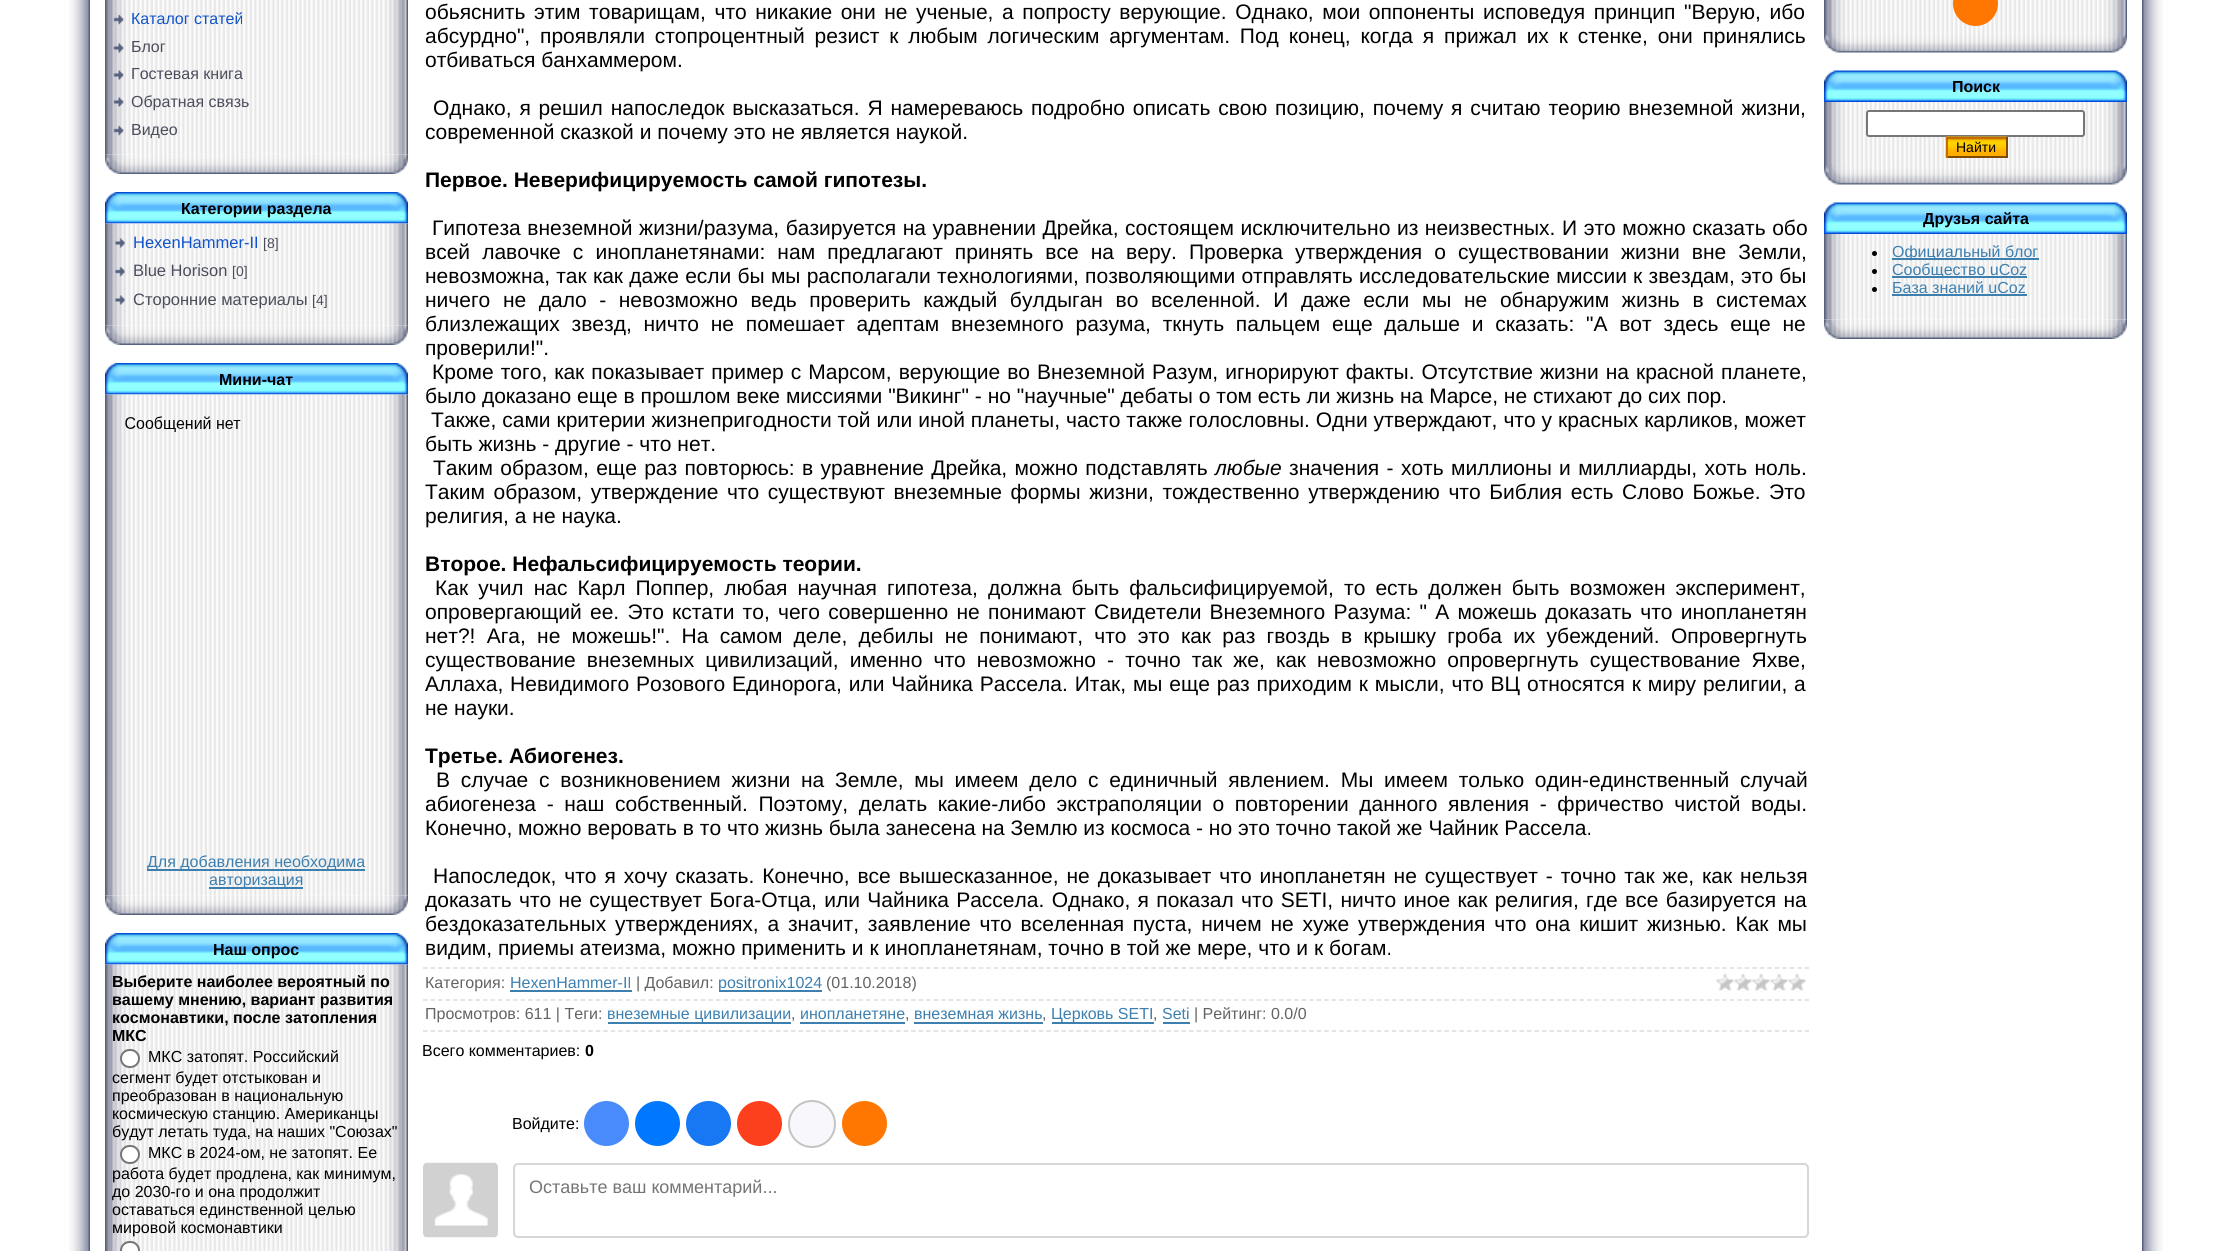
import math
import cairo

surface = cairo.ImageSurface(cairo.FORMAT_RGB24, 2231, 1251)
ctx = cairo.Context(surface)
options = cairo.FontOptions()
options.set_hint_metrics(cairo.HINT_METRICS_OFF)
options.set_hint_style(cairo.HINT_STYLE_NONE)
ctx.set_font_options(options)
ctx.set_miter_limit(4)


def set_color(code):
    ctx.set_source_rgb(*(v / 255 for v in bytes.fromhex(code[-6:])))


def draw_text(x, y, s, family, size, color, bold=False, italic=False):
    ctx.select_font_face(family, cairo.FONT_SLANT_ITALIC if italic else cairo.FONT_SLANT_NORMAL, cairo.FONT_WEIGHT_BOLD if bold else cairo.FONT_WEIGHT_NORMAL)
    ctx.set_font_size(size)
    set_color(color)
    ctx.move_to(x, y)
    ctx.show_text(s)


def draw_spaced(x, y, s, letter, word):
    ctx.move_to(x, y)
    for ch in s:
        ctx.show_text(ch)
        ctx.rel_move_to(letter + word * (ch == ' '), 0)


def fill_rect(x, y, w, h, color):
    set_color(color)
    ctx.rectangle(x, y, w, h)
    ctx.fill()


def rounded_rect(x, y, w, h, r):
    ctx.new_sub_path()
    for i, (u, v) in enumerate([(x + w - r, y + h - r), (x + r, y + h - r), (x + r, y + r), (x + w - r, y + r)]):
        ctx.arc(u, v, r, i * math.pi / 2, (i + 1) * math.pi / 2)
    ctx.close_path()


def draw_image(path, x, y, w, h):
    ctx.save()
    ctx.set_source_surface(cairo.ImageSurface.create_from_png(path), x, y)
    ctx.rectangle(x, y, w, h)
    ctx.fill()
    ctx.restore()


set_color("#ffffff")
ctx.paint()
draw_image("assets/img1.png", 69, 0, 21, 1251)
draw_image("assets/img2.png", 105, 0, 303, 155)
draw_image("assets/img3.png", 113, 14, 11, 11)
draw_text(131, 24, "Каталог статей", "Liberation Sans", 16, "#1154ca")
draw_image("assets/img4.png", 113, 43, 11, 10)
draw_text(131, 52, "Блог", "Liberation Sans", 16, "#4b4d5c")
draw_image("assets/img4.png", 113, 70, 11, 10)
draw_text(131, 79, "Гостевая книга", "Liberation Sans", 16, "#4b4d5c")
draw_image("assets/img5.png", 113, 97, 11, 10)
draw_text(131, 107, "Обратная связь", "Liberation Sans", 16, "#4b4d5c")
draw_image("assets/img6.png", 113, 125, 11, 11)
draw_text(131, 135, "Видео", "Liberation Sans", 16, "#4b4d5c")
draw_image("assets/img7.png", 105, 154, 303, 20)
draw_image("assets/img8.png", 105, 192, 303, 32)
draw_text(181, 214, "Категории раздела", "Liberation Sans", 16, "#000000", bold=True)
draw_image("assets/img9.png", 105, 223, 303, 103)
draw_image("assets/img10.png", 115, 238, 10, 10)
draw_text(133, 248, "HexenHammer-II", "Liberation Sans", 16.5, "#1154ca")
draw_text(263, 248, "[8]", "Liberation Sans", 14, "#4b4d5c")
draw_image("assets/img11.png", 115, 266, 10, 11)
draw_text(133, 276, "Blue Horison", "Liberation Sans", 16.5, "#4b4d5c")
draw_text(232, 276, "[0]", "Liberation Sans", 14, "#4b4d5c")
draw_image("assets/img12.png", 115, 295, 10, 10)
draw_text(133, 305, "Сторонние материалы", "Liberation Sans", 16.5, "#4b4d5c")
draw_text(312, 305, "[4]", "Liberation Sans", 14, "#4b4d5c")
draw_image("assets/img7.png", 105, 325, 303, 20)
draw_image("assets/img8.png", 105, 363, 303, 32)
draw_text(219, 385, "Мини-чат", "Liberation Sans", 16, "#000000", bold=True)
draw_image("assets/img13.png", 105, 394, 303, 502)
draw_image("assets/img14.png", 125, 416, 116, 16)
fill_rect(147, 869, 218, 2, "#3d80b0")
draw_text(147, 867, "Для добавления необходима", "Liberation Sans", 16, "#3d80b0")
fill_rect(209, 887, 94, 2, "#3d80b0")
draw_text(209, 885, "авторизация", "Liberation Sans", 16, "#3d80b0")
draw_image("assets/img7.png", 105, 895, 303, 20)
draw_image("assets/img8.png", 105, 933, 303, 32)
draw_text(213, 955, "Наш опрос", "Liberation Sans", 16, "#000000", bold=True)
draw_image("assets/img15.png", 105, 964, 303, 287)
draw_text(112, 987, "Выберите наиболее вероятный по", "Liberation Sans", 16, "#000000", bold=True)
draw_text(112, 1005, "вашему мнению, вариант развития", "Liberation Sans", 16, "#000000", bold=True)
draw_text(112, 1023, "космонавтики, после затопления", "Liberation Sans", 16, "#000000", bold=True)
draw_text(112, 1041, "МКС", "Liberation Sans", 16, "#000000", bold=True)
set_color("#ffffff")
rounded_rect(121, 1050, 18, 17, 8.5)
ctx.fill_preserve()
set_color("#767676")
ctx.stroke()
draw_text(148, 1062, "МКС затопят. Российский", "Liberation Sans", 16, "#000000")
draw_text(112, 1083, "сегмент будет отстыкован и", "Liberation Sans", 16, "#000000")
draw_text(112, 1101, "преобразован в национальную", "Liberation Sans", 16, "#000000")
draw_text(112, 1119, "космическую станцию. Американцы", "Liberation Sans", 16, "#000000")
draw_text(112, 1137, "будут летать туда, на наших \"Союзах\"", "Liberation Sans", 16, "#000000")
set_color("#ffffff")
rounded_rect(121, 1146, 18, 17, 8.5)
ctx.fill_preserve()
set_color("#767676")
ctx.stroke()
draw_text(148, 1158, "МКС в 2024-ом, не затопят. Ее", "Liberation Sans", 16, "#000000")
draw_text(112, 1179, "работа будет продлена, как минимум,", "Liberation Sans", 16, "#000000")
draw_text(112, 1197, "до 2030-го и она продолжит", "Liberation Sans", 16, "#000000")
draw_text(112, 1215, "оставаться единственной целью", "Liberation Sans", 16, "#000000")
draw_text(112, 1233, "мировой космонавтики", "Liberation Sans", 16, "#000000")
set_color("#ffffff")
rounded_rect(121, 1242, 18, 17, 8.5)
ctx.fill_preserve()
set_color("#767676")
ctx.stroke()
ctx.set_font_size(21)
set_color("#000000")
draw_spaced(425, 19, "обьяснить этим товарищам, что никакие они не ученые, а попросту верующие. Однако, мои оппоненты исповедуя принцип \"Верую, ибо", 0, 2.75)
draw_spaced(425, 43, "абсурдно\", проявляли стопроцентный резист к любым логическим аргументам. Под конец, когда я прижал их к стенке, они принялись", 0, 4)
draw_text(425, 67, "отбиваться банхаммером.", "Liberation Sans", 21, "#000000")
draw_spaced(433, 115, "Однако, я решил напоследок высказаться. Я намереваюсь подробно описать свою позицию, почему я считаю теорию внеземной жизни,", 0, 2)
draw_text(425, 139, "современной сказкой и почему это не является наукой.", "Liberation Sans", 21, "#000000")
draw_text(425, 187, "Первое. Неверифицируемость самой гипотезы.", "Liberation Sans", 21, "#000000", bold=True)
ctx.select_font_face("Liberation Sans")
draw_spaced(432, 235, "Гипотеза внеземной жизни/разума, базируется на уравнении Дрейка, состоящем исключительно из неизвестных. И это можно сказать обо", 0, 0.75)
draw_spaced(425, 259, "всей лавочке с инопланетянами: нам предлагают принять все на веру. Проверка утверждения о существовании жизни вне Земли,", 0, 6.25)
draw_spaced(425, 283, "невозможна, так как даже если бы мы располагали технологиями, позволяющими отправлять исследовательские миссии к звездам, это бы", 0, 0.4)
draw_spaced(425, 307, "ничего не дало - невозможно ведь проверить каждый булдыган во вселенной. И даже если мы не обнаружим жизнь в системах", 0, 6.75)
draw_spaced(425, 331, "близлежащих звезд, ничто не помешает адептам внеземного разума, ткнуть пальцем еще дальше и сказать: \"А вот здесь еще не", 0, 5.9)
draw_text(425, 355, "проверили!\".", "Liberation Sans", 21, "#000000")
draw_spaced(432, 379, "Кроме того, как показывает пример с Марсом, верующие во Внеземной Разум, игнорируют факты. Отсутствие жизни на красной планете,", 0, 1.2)
draw_text(425, 403, "было доказано еще в прошлом веке миссиями \"Викинг\" - но \"научные\" дебаты о том есть ли жизнь на Марсе, не стихают до сих пор.", "Liberation Sans", 21, "#000000")
draw_spaced(431, 427, "Также, сами критерии жизнепригодности той или иной планеты, часто также голословны. Одни утверждают, что у красных карликов, может", 0, 0.1)
draw_text(425, 451, "быть жизнь - другие - что нет.", "Liberation Sans", 21, "#000000")
draw_spaced(433, 475, "Таким образом, еще раз повторюсь: в уравнение Дрейка, можно подставлять", 0, 1.5)
draw_text(1215, 475, "любые", "Liberation Sans", 21, "#000000", italic=True)
ctx.select_font_face("Liberation Sans")
draw_spaced(1289, 475, "значения - хоть миллионы и миллиарды, хоть ноль.", 0, 1.5)
draw_spaced(425, 499, "Таким образом, утверждение что существуют внеземные формы жизни, тождественно утверждению что Библия есть Слово Божье. Это", 0, 2.75)
draw_text(425, 523, "религия, а не наука.", "Liberation Sans", 21, "#000000")
draw_text(425, 571, "Второе. Нефальсифицируемость теории.", "Liberation Sans", 21, "#000000", bold=True)
ctx.select_font_face("Liberation Sans")
draw_spaced(435, 595, "Как учил нас Карл Поппер, любая научная гипотеза, должна быть фальсифицируемой, то есть должен быть возможен эксперимент,", 0, 4.25)
draw_spaced(425, 619, "опровергающий ее. Это кстати то, чего совершенно не понимают Свидетели Внеземного Разума: \" А можешь доказать что инопланетян", 0, 2.4)
draw_spaced(425, 643, "нет?! Ага, не можешь!\". На самом деле, дебилы не понимают, что это как раз гвоздь в крышку гроба их убеждений. Опровергнуть", 0, 5.4)
draw_spaced(425, 667, "существование внеземных цивилизаций, именно что невозможно - точно так же, как невозможно опровергнуть существование Яхве,", 0, 5.25)
draw_spaced(425, 691, "Аллаха, Невидимого Розового Единорога, или Чайника Рассела. Итак, мы еще раз приходим к мысли, что ВЦ относятся к миру религии, а", 0, 1)
draw_text(425, 715, "не науки.", "Liberation Sans", 21, "#000000")
draw_text(425, 763, "Третье. Абиогенез.", "Liberation Sans", 21, "#000000", bold=True)
ctx.select_font_face("Liberation Sans")
draw_spaced(436, 787, "В случае с возникновением жизни на Земле, мы имеем дело с единичный явлением. Мы имеем только один-единственный случай", 0, 4.9)
draw_spaced(425, 811, "абиогенеза - наш собственный. Поэтому, делать какие-либо экстраполяции о повторении данного явления - фричество чистой воды.", 0, 4.75)
draw_text(425, 835, "Конечно, можно веровать в то что жизнь была занесена на Землю из космоса - но это точно такой же Чайник Рассела.", "Liberation Sans", 21, "#000000")
draw_spaced(433, 883, "Напоследок, что я хочу сказать. Конечно, все вышесказанное, не доказывает что инопланетян не существует - точно так же, как нельзя", 0, 2.1)
draw_spaced(425, 907, "доказать что не существует Бога-Отца, или Чайника Рассела. Однако, я показал что SETI, ничто иное как религия, где все базируется на", 0, 1.5)
draw_spaced(425, 931, "бездоказательных утверждениях, а значит, заявление что вселенная пуста, ничем не хуже утверждения что она кишит жизнью. Как мы", 0, 3)
draw_text(425, 955, "видим, приемы атеизма, можно применить и к инопланетянам, точно в той же мере, что и к богам.", "Liberation Sans", 21, "#000000")
ctx.new_path()
ctx.move_to(423, 968)
ctx.line_to(1809, 968)
set_color("#dddddd")
ctx.set_line_width(1.5)
ctx.set_dash([4.5, 3.01])
ctx.stroke()
ctx.new_path()
ctx.move_to(423, 1000)
ctx.line_to(1809, 1000)
ctx.stroke()
draw_text(425, 988, "Категория:", "Liberation Sans", 16, "#636363")
draw_text(510, 988, "HexenHammer-II", "Liberation Sans", 16, "#3d80b0")
fill_rect(510, 990, 122, 2, "#3d80b0")
draw_text(636, 988, "| Добавил:", "Liberation Sans", 16, "#636363")
fill_rect(719, 990, 103, 2, "#3d80b0")
draw_text(718, 988, "positronix1024", "Liberation Sans", 16, "#3d80b0")
draw_text(826, 988, "(01.10.2018)", "Liberation Sans", 16, "#636363")
draw_image("assets/img16.png", 1716, 973, 90, 19)
ctx.new_path()
ctx.move_to(423, 1031)
ctx.line_to(1809, 1031)
set_color("#dddddd")
ctx.stroke()
draw_text(425, 1019, "Просмотров: 611 | Теги:", "Liberation Sans", 16, "#636363")
fill_rect(608, 1022, 183, 2, "#3d80b0")
draw_text(607, 1019, "внеземные цивилизации", "Liberation Sans", 16, "#3d80b0")
draw_text(791, 1019, ",", "Liberation Sans", 16, "#636363")
draw_text(800, 1019, "инопланетяне", "Liberation Sans", 16, "#3d80b0")
draw_text(905, 1019, ",", "Liberation Sans", 16, "#636363")
fill_rect(800, 1022, 105, 2, "#3d80b0")
draw_text(914, 1019, "внеземная жизнь", "Liberation Sans", 16, "#3d80b0")
draw_text(1042, 1019, ",", "Liberation Sans", 16, "#636363")
fill_rect(914, 1022, 129, 2, "#3d80b0")
fill_rect(1052, 1022, 102, 2, "#3d80b0")
draw_text(1051, 1019, "Церковь SETI", "Liberation Sans", 16, "#3d80b0")
draw_text(1153, 1019, ",", "Liberation Sans", 16, "#636363")
fill_rect(1163, 1022, 27, 2, "#3d80b0")
draw_text(1162, 1019, "Seti", "Liberation Sans", 16, "#3d80b0")
draw_text(1194, 1019, "| Рейтинг: 0.0/0", "Liberation Sans", 16, "#636363")
draw_text(422, 1056, "Всего комментариев:", "Liberation Sans", 16, "#000000")
draw_text(585, 1056, "0", "Liberation Sans", 16, "#000000", bold=True)
draw_text(512, 1129, "Войдите:", "Liberation Sans", 16, "#000000")
set_color("#498bfa")
ctx.new_path()
ctx.arc(606.5, 1123.5, 22.5, 0, 2 * math.pi)
ctx.fill()
set_color("#0077ff")
ctx.arc(657.5, 1123.5, 22.5, 0, 2 * math.pi)
ctx.fill()
set_color("#1877f2")
ctx.arc(708.5, 1123.5, 22.5, 0, 2 * math.pi)
ctx.fill()
set_color("#fc3f1d")
ctx.arc(759.5, 1123.5, 22.5, 0, 2 * math.pi)
ctx.fill()
set_color("#f8f8fc")
ctx.arc(812, 1124, 23, 0, 2 * math.pi)
ctx.fill_preserve()
set_color("#c4c4c4")
ctx.set_line_width(2)
ctx.set_dash([])
ctx.stroke()
set_color("#ff7700")
ctx.arc(864.5, 1123.5, 22.5, 0, 2 * math.pi)
ctx.fill()
draw_image("assets/img17.png", 423, 1162, 75, 76)
rounded_rect(514, 1164, 1294, 73, 4)
set_color("#d6d6d6")
ctx.stroke()
draw_text(529, 1193, "Оставьте ваш комментарий...", "Liberation Sans", 18, "#757575")
draw_image("assets/img18.png", 1824, 0, 303, 33)
set_color("#ff7700")
ctx.arc(1975.5, 3.5, 22.5, 0, 2 * math.pi)
ctx.fill()
draw_image("assets/img19.png", 1824, 33, 303, 20)
draw_image("assets/img20.png", 1824, 70, 303, 32)
draw_text(1952, 92, "Поиск", "Liberation Sans", 16, "#000000", bold=True)
draw_image("assets/img21.png", 1824, 102, 303, 63)
set_color("#ffffff")
rounded_rect(1867, 111, 217, 25, 2)
ctx.fill_preserve()
set_color("#767676")
ctx.stroke()
draw_image("assets/img22.png", 1945, 136, 62, 22)
fill_rect(1946, 137, 61, 2, "#c66d00")
fill_rect(2006, 137, 2, 21, "#844900")
fill_rect(1946, 156, 61, 2, "#844900")
fill_rect(1946, 137, 2, 21, "#c66d00")
draw_text(1956, 152, "Найти", "Liberation Sans", 14, "#000000")
draw_image("assets/img19.png", 1824, 165, 303, 20)
draw_image("assets/img20.png", 1824, 202, 303, 32)
draw_text(1923, 224, "Друзья сайта", "Liberation Sans", 16, "#000000", bold=True)
draw_image("assets/img23.png", 1824, 234, 303, 86)
ctx.arc(1874.5, 253.5, 2.5, 0, 2 * math.pi)
ctx.fill()
fill_rect(1892, 258, 147, 2, "#3d80b0")
draw_text(1892, 257, "Официальный блог", "Liberation Sans", 16, "#3d80b0")
set_color("#000000")
ctx.new_path()
ctx.arc(1874.5, 271.5, 2.5, 0, 2 * math.pi)
ctx.fill()
fill_rect(1892, 276, 135, 2, "#3d80b0")
draw_text(1892, 275, "Сообщество uCoz", "Liberation Sans", 16, "#3d80b0")
set_color("#000000")
ctx.new_path()
ctx.arc(1874.5, 289.5, 2.5, 0, 2 * math.pi)
ctx.fill()
draw_text(1892, 293, "База знаний uCoz", "Liberation Sans", 16, "#3d80b0")
fill_rect(1892, 294, 135, 2, "#3d80b0")
draw_image("assets/img24.png", 1824, 319, 303, 20)
draw_image("assets/img25.png", 2142, 0, 21, 1251)
surface.write_to_png("output.png")
